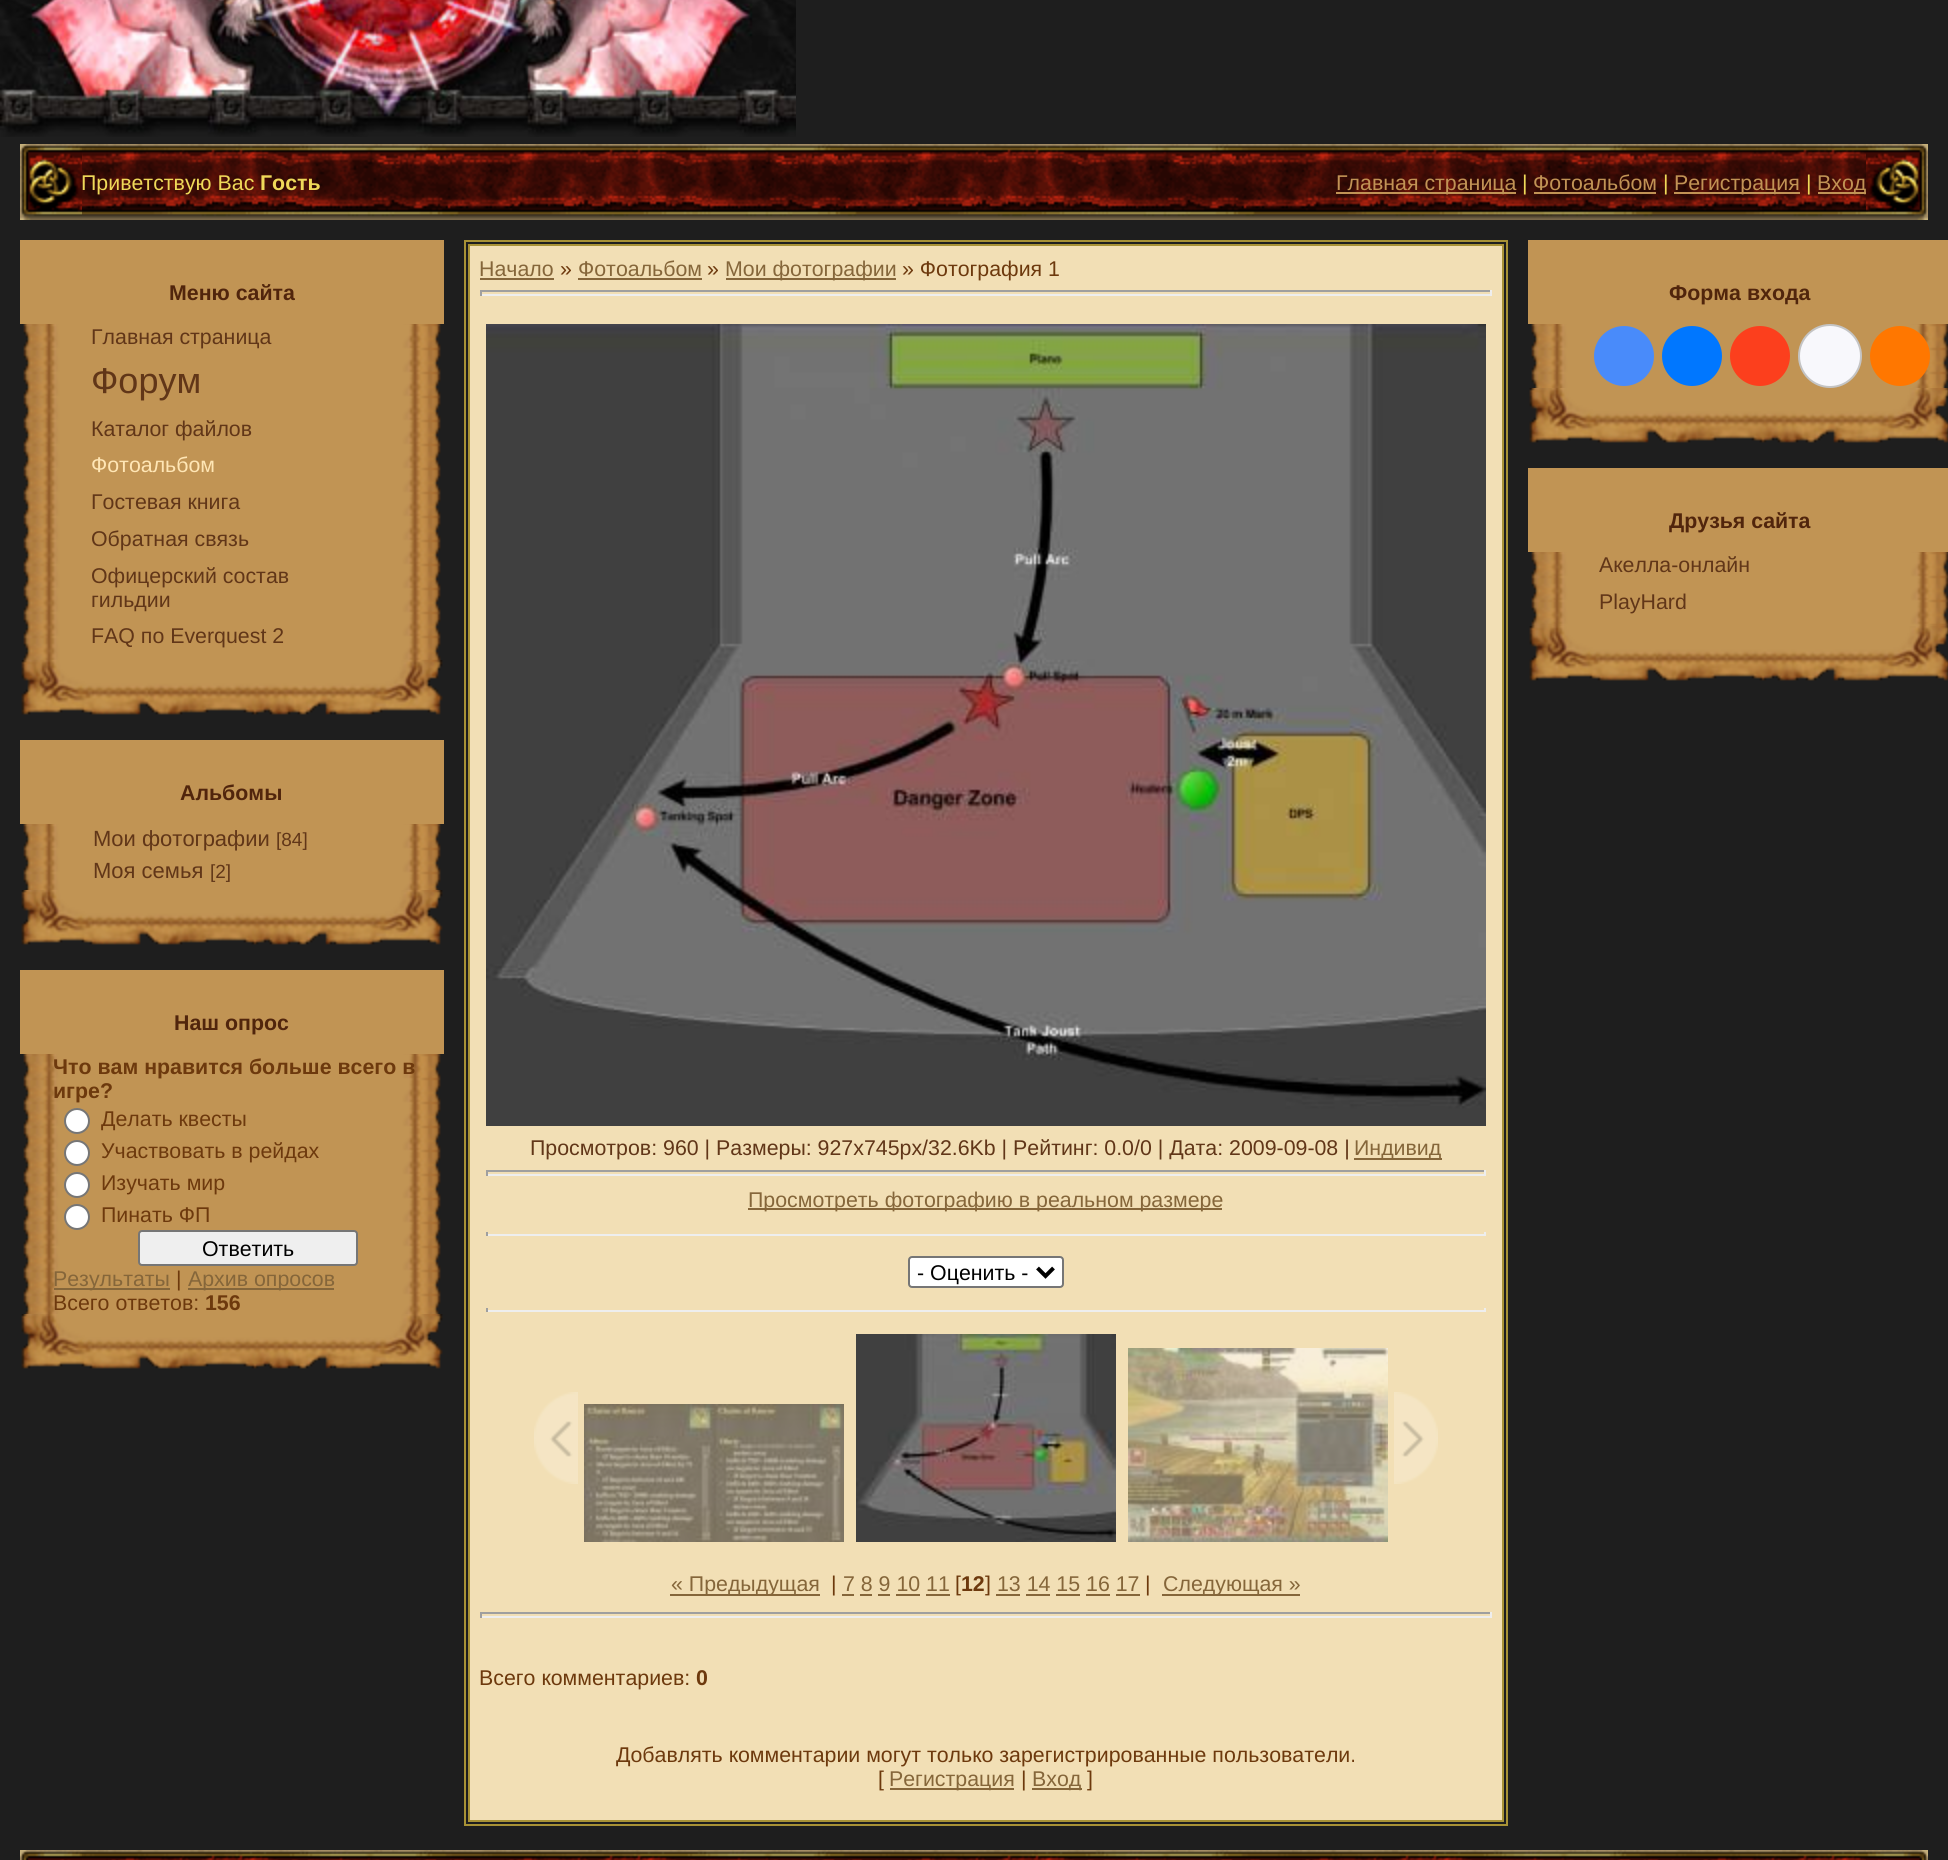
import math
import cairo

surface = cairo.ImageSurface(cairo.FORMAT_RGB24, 1948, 1860)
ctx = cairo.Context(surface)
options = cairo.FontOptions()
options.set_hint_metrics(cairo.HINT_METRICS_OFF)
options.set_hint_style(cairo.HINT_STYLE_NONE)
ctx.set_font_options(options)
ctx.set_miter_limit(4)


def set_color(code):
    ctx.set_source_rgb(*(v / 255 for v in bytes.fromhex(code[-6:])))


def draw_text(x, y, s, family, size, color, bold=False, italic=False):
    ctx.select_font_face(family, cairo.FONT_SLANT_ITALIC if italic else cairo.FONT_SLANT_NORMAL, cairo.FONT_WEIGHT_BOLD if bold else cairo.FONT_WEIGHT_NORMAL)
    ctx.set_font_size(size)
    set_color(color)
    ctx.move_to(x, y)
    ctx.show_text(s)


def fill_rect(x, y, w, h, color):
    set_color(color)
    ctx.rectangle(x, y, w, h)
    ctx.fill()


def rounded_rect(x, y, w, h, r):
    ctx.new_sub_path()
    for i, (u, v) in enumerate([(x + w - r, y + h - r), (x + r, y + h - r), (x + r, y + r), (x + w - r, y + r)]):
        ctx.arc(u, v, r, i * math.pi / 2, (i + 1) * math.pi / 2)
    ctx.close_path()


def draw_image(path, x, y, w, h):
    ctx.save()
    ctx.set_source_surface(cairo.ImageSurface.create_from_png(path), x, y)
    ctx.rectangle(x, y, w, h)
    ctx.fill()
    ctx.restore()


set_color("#1e1e1e")
ctx.paint()
draw_image("assets/img1.png", 0, 0, 796, 137)
draw_image("assets/img2.png", 82, 144, 1784, 76)
draw_image("assets/img3.png", 20, 144, 62, 76)
draw_text(81, 190, "Приветствую Вас", "Liberation Sans", 21.35, "#efd959")
draw_text(260, 190, "Гость", "Liberation Sans", 21.35, "#efd959", bold=True)
fill_rect(1336, 192, 180, 2, "#c19355")
draw_text(1336, 190, "Главная страница", "Liberation Sans", 21.35, "#c19355")
draw_text(1522, 190, "|", "Liberation Sans", 21.35, "#efd959")
draw_text(1533, 190, "Фотоальбом", "Liberation Sans", 21.35, "#c19355")
fill_rect(1534, 192, 122, 2, "#c19355")
draw_text(1663, 190, "|", "Liberation Sans", 21.35, "#efd959")
fill_rect(1674, 192, 126, 2, "#c19355")
draw_text(1674, 190, "Регистрация", "Liberation Sans", 21.35, "#c19355")
draw_text(1806, 190, "|", "Liberation Sans", 21.35, "#efd959")
fill_rect(1818, 192, 48, 2, "#c19355")
draw_text(1817, 190, "Вход", "Liberation Sans", 21.35, "#c19355")
draw_image("assets/img4.png", 1866, 144, 62, 76)
fill_rect(20, 240, 424, 84, "#c19454")
draw_text(169, 300, "Меню сайта", "Liberation Sans", 21.35, "#51250c", bold=True)
draw_image("assets/img5.png", 20, 324, 424, 336)
draw_text(91, 344, "Главная страница", "Liberation Sans", 21.35, "#613618")
draw_text(91, 393, "Форум", "Liberation Sans", 36, "#613618")
draw_text(91, 436, "Каталог файлов", "Liberation Sans", 21.35, "#613618")
draw_text(91, 472, "Фотоальбом", "Liberation Sans", 21.35, "#ffe6b5")
draw_text(91, 509, "Гостевая книга", "Liberation Sans", 21.35, "#613618")
draw_text(91, 546, "Обратная связь", "Liberation Sans", 21.35, "#613618")
draw_text(91, 583, "Офицерский состав", "Liberation Sans", 21.35, "#613618")
draw_text(91, 607, "гильдии", "Liberation Sans", 21.35, "#613618")
draw_text(91, 643, "FAQ по Everquest 2", "Liberation Sans", 21.35, "#613618")
draw_image("assets/img6.png", 20, 660, 424, 56)
fill_rect(20, 740, 424, 84, "#c19454")
draw_text(180, 800, "Альбомы", "Liberation Sans", 21.35, "#51250c", bold=True)
draw_image("assets/img7.png", 20, 824, 424, 66)
draw_text(93, 846, "Мои фотографии", "Liberation Sans", 22, "#613618")
draw_text(276, 846, "[84]", "Liberation Sans", 19, "#613618")
draw_text(93, 878, "Моя семья", "Liberation Sans", 22, "#613618")
draw_text(210, 878, "[2]", "Liberation Sans", 19, "#613618")
draw_image("assets/img6.png", 20, 890, 424, 56)
fill_rect(20, 970, 424, 84, "#c19454")
draw_text(174, 1030, "Наш опрос", "Liberation Sans", 21.35, "#51250c", bold=True)
draw_image("assets/img8.png", 20, 1054, 424, 260)
draw_text(53, 1074, "Что вам нравится больше всего в", "Liberation Sans", 21.35, "#6d390d", bold=True)
draw_text(53, 1098, "игре?", "Liberation Sans", 21.35, "#6d390d", bold=True)
set_color("#ffffff")
ctx.new_path()
ctx.arc(77, 1121, 12, 0, 2 * math.pi)
ctx.fill_preserve()
set_color("#767676")
ctx.stroke()
draw_text(101, 1126, "Делать квесты", "Liberation Sans", 21.35, "#6d390d")
set_color("#ffffff")
ctx.new_path()
ctx.arc(77, 1153, 12, 0, 2 * math.pi)
ctx.fill_preserve()
set_color("#767676")
ctx.stroke()
draw_text(101, 1158, "Участвовать в рейдах", "Liberation Sans", 21.35, "#6d390d")
set_color("#ffffff")
ctx.new_path()
ctx.arc(77, 1185, 12, 0, 2 * math.pi)
ctx.fill_preserve()
set_color("#767676")
ctx.stroke()
draw_text(101, 1190, "Изучать мир", "Liberation Sans", 21.35, "#6d390d")
set_color("#ffffff")
ctx.new_path()
ctx.arc(77, 1217, 12, 0, 2 * math.pi)
ctx.fill_preserve()
set_color("#767676")
ctx.stroke()
draw_text(101, 1222, "Пинать ФП", "Liberation Sans", 21.35, "#6d390d")
set_color("#efefef")
rounded_rect(139, 1231, 218, 34, 3)
ctx.fill_preserve()
set_color("#767676")
ctx.stroke()
draw_text(202, 1256, "Ответить", "Liberation Sans", 21.35, "#000000")
fill_rect(54, 1288, 116, 2, "#85663a")
draw_text(53, 1286, "Результаты", "Liberation Sans", 21.35, "#85663a")
draw_text(176, 1286, "|", "Liberation Sans", 21.35, "#6d390d")
fill_rect(188, 1288, 146, 2, "#85663a")
draw_text(188, 1286, "Архив опросов", "Liberation Sans", 21.35, "#85663a")
draw_text(53, 1310, "Всего ответов:", "Liberation Sans", 21.35, "#6d390d")
draw_text(205, 1310, "156", "Liberation Sans", 21.35, "#6d390d", bold=True)
draw_image("assets/img6.png", 20, 1314, 424, 56)
ctx.rectangle(465, 241, 1042, 1584)
set_color("#a89236")
ctx.stroke()
ctx.rectangle(469, 245, 1034, 1576)
ctx.stroke()
fill_rect(470, 246, 1032, 1574, "#f2dfb5")
draw_text(479, 276, "Начало", "Liberation Sans", 21.35, "#85663a")
fill_rect(480, 278, 74, 2, "#85663a")
draw_text(560, 276, "»", "Liberation Sans", 21.35, "#6d390d")
draw_text(578, 276, "Фотоальбом", "Liberation Sans", 21.35, "#85663a")
fill_rect(578, 278, 124, 2, "#85663a")
draw_text(707, 276, "»", "Liberation Sans", 21.35, "#6d390d")
fill_rect(726, 278, 170, 2, "#85663a")
draw_text(725, 276, "Мои фотографии", "Liberation Sans", 21.35, "#85663a")
draw_text(902, 276, "» Фотография 1", "Liberation Sans", 21.35, "#6d390d")
fill_rect(480, 290, 1012, 2, "#9f9f9f")
fill_rect(1490, 290, 2, 6, "#eeeeee")
fill_rect(480, 294, 1012, 2, "#eeeeee")
fill_rect(480, 290, 2, 6, "#9f9f9f")
draw_image("assets/img9.png", 486, 324, 1000, 802)
draw_text(530, 1155, "Просмотров: 960 | Размеры: 927x745px/32.6Kb | Рейтинг: 0.0/0 | Дата: 2009-09-08 |", "Liberation Sans", 21.35, "#613618")
fill_rect(1354, 1158, 88, 2, "#85663a")
draw_text(1354, 1155, "Индивид", "Liberation Sans", 21.35, "#85663a")
fill_rect(486, 1170, 1000, 2, "#9f9f9f")
fill_rect(1484, 1170, 2, 6, "#eeeeee")
fill_rect(486, 1174, 1000, 2, "#eeeeee")
fill_rect(486, 1170, 2, 6, "#9f9f9f")
fill_rect(748, 1208, 474, 2, "#85663a")
draw_text(748, 1207, "Просмотреть фотографию в реальном размере", "Liberation Sans", 21.35, "#85663a")
fill_rect(1484, 1232, 2, 4, "#eeeeee")
fill_rect(486, 1234, 1000, 2, "#eeeeee")
fill_rect(486, 1232, 2, 4, "#9f9f9f")
set_color("#ffffff")
rounded_rect(909, 1257, 154, 30, 3)
ctx.fill_preserve()
set_color("#767676")
ctx.stroke()
ctx.new_path()
ctx.move_to(1037.5, 1268)
ctx.line_to(1045.5, 1276)
ctx.line_to(1053.5, 1268)
set_color("#000000")
ctx.set_line_width(4)
ctx.stroke()
draw_text(917, 1280, "- Оценить -", "Liberation Sans", 21.35, "#000000")
fill_rect(1484, 1308, 2, 4, "#eeeeee")
fill_rect(486, 1310, 1000, 2, "#eeeeee")
fill_rect(486, 1308, 2, 4, "#9f9f9f")
draw_image("assets/img10.png", 534, 1392, 44, 92)
draw_image("assets/img11.png", 584, 1404, 260, 138)
draw_image("assets/img12.png", 856, 1334, 260, 208)
draw_image("assets/img13.png", 1128, 1348, 260, 194)
draw_image("assets/img14.png", 1394, 1392, 44, 92)
fill_rect(670, 1594, 150, 2, "#85663a")
draw_text(671, 1591, "« Предыдущая", "Liberation Sans", 21.35, "#85663a")
draw_text(831, 1591, "|", "Liberation Sans", 21.35, "#6d390d")
draw_text(843, 1591, "7 8 9 10 11", "Liberation Sans", 21.35, "#85663a")
fill_rect(842, 1594, 12, 2, "#85663a")
draw_text(955, 1591, "[", "Liberation Sans", 21.35, "#6d390d")
draw_text(961, 1591, "12", "Liberation Sans", 21.35, "#6d390d", bold=True)
draw_text(985, 1591, "]", "Liberation Sans", 21.35, "#6d390d")
draw_text(997, 1591, "13 14 15 16 17", "Liberation Sans", 21.35, "#85663a")
fill_rect(996, 1594, 24, 2, "#85663a")
draw_text(1145, 1591, "|", "Liberation Sans", 21.35, "#6d390d")
fill_rect(1162, 1594, 138, 2, "#85663a")
draw_text(1163, 1591, "Следующая »", "Liberation Sans", 21.35, "#85663a")
fill_rect(860, 1594, 12, 2, "#85663a")
fill_rect(878, 1594, 12, 2, "#85663a")
fill_rect(896, 1594, 24, 2, "#85663a")
fill_rect(926, 1594, 24, 2, "#85663a")
fill_rect(1026, 1594, 24, 2, "#85663a")
fill_rect(1056, 1594, 24, 2, "#85663a")
fill_rect(1086, 1594, 24, 2, "#85663a")
fill_rect(1116, 1594, 24, 2, "#85663a")
fill_rect(480, 1612, 1012, 2, "#9f9f9f")
fill_rect(1490, 1612, 2, 6, "#eeeeee")
fill_rect(480, 1616, 1012, 2, "#eeeeee")
fill_rect(480, 1612, 2, 6, "#9f9f9f")
draw_text(479, 1685, "Всего комментариев:", "Liberation Sans", 21.35, "#6d390d")
draw_text(696, 1685, "0", "Liberation Sans", 21.35, "#6d390d", bold=True)
draw_text(616, 1762, "Добавлять комментарии могут только зарегистрированные пользователи.", "Liberation Sans", 21.35, "#6d390d")
draw_text(878, 1786, "[", "Liberation Sans", 21.35, "#6d390d")
fill_rect(890, 1788, 124, 2, "#85663a")
draw_text(889, 1786, "Регистрация", "Liberation Sans", 21.35, "#85663a")
draw_text(1021, 1786, "|", "Liberation Sans", 21.35, "#6d390d")
fill_rect(1032, 1788, 50, 2, "#85663a")
draw_text(1032, 1786, "Вход", "Liberation Sans", 21.35, "#85663a")
draw_text(1087, 1786, "]", "Liberation Sans", 21.35, "#6d390d")
fill_rect(1528, 240, 420, 84, "#c19454")
draw_text(1669, 300, "Форма входа", "Liberation Sans", 21.35, "#51250c", bold=True)
draw_image("assets/img15.png", 1528, 324, 420, 64)
set_color("#498bfa")
ctx.arc(1624, 356, 30, 0, 2 * math.pi)
ctx.fill()
set_color("#0077ff")
ctx.arc(1692, 356, 30, 0, 2 * math.pi)
ctx.fill()
set_color("#fc3f1d")
ctx.arc(1760, 356, 30, 0, 2 * math.pi)
ctx.fill()
set_color("#f8f8fc")
ctx.arc(1830, 356, 31, 0, 2 * math.pi)
ctx.fill_preserve()
set_color("#c4c4c4")
ctx.set_line_width(2)
ctx.stroke()
set_color("#ff7700")
ctx.arc(1900, 356, 30, 0, 2 * math.pi)
ctx.fill()
draw_image("assets/img16.png", 1528, 388, 420, 56)
fill_rect(1528, 468, 420, 84, "#c19454")
draw_text(1669, 528, "Друзья сайта", "Liberation Sans", 21.35, "#51250c", bold=True)
draw_image("assets/img17.png", 1528, 552, 420, 74)
draw_text(1599, 572, "Акелла-онлайн", "Liberation Sans", 21.35, "#613618")
draw_text(1599, 609, "PlayHard", "Liberation Sans", 21.35, "#613618")
draw_image("assets/img16.png", 1528, 626, 420, 56)
draw_image("assets/img18.png", 82, 1850, 1784, 10)
draw_image("assets/img19.png", 20, 1850, 62, 10)
draw_image("assets/img20.png", 1866, 1850, 62, 10)
surface.write_to_png("output.png")
